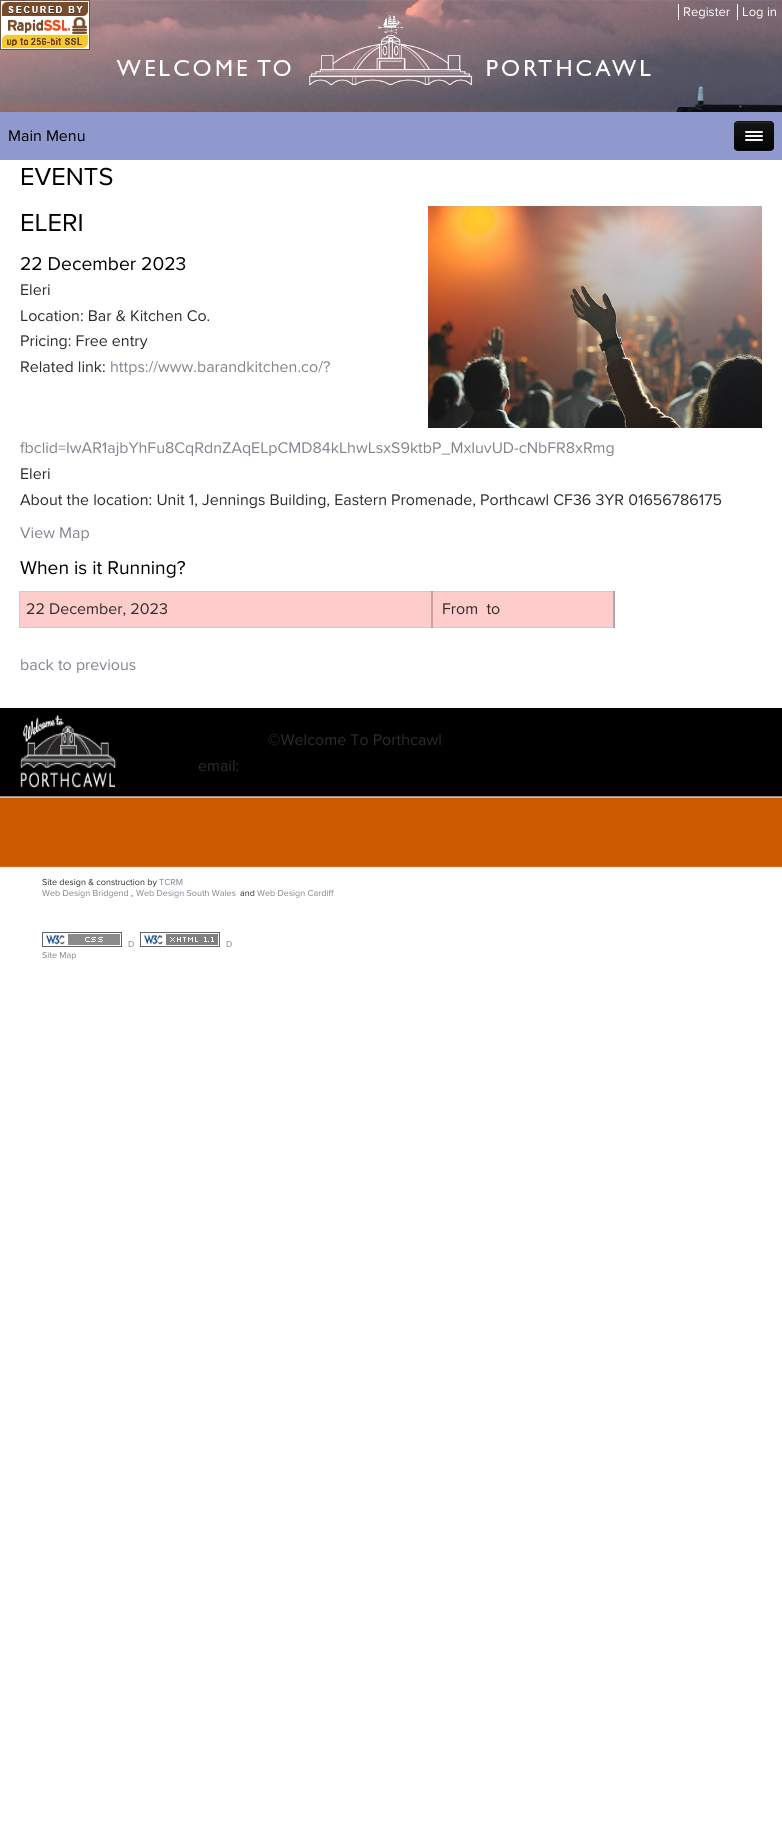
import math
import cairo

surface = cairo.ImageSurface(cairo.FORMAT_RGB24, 782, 1838)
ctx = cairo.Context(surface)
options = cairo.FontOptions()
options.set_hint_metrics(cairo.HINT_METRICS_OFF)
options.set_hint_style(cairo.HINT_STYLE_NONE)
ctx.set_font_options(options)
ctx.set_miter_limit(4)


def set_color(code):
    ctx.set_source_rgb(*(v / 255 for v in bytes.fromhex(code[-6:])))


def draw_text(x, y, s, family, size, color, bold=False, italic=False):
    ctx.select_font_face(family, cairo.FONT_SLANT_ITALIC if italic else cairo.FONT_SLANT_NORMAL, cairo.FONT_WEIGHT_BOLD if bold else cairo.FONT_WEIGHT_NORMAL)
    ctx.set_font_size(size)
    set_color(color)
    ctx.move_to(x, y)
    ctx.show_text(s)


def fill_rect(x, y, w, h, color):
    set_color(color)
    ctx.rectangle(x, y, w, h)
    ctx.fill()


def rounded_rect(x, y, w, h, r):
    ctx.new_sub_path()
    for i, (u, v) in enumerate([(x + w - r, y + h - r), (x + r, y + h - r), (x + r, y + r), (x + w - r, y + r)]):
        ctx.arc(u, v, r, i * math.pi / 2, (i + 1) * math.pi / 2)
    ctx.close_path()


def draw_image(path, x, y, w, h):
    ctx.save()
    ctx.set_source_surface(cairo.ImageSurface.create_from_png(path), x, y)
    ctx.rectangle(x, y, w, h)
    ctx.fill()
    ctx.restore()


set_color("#ffffff")
ctx.paint()
draw_image("assets/img1.png", 0, 0, 782, 112)
draw_image("assets/img2.png", 0, 0, 90, 50)
draw_image("assets/img3.png", 0, 0, 782, 85)
fill_rect(678, 4, 1, 16, "#ffffff")
draw_text(683, 16, "Register", "Proxima Nova", 13, "#ffffff")
fill_rect(737, 4, 1, 16, "#ffffff")
draw_text(742, 16, "Log in", "Proxima Nova", 13, "#ffffff")
fill_rect(0, 112, 782, 48, "#8f99cd")
draw_text(8, 141, "Main Menu", "Proxima Nova", 16, "#000000")
set_color("#97a1d1")
ctx.new_path()
ctx.move_to(734, 147)
ctx.curve_to(734, 153, 739, 152, 743, 152)
ctx.line_to(765, 152)
ctx.curve_to(769, 152, 774, 153, 774, 147)
ctx.curve_to(774, 149, 772, 151, 770, 151)
ctx.line_to(738, 151)
ctx.curve_to(736, 151, 734, 149, 734, 147)
ctx.close_path()
ctx.fill()
set_color("#0e0e0e")
rounded_rect(734, 121, 40, 30, 4)
ctx.fill()
ctx.save()
rounded_rect(734, 121, 40, 30, 4)
ctx.clip()
gradient = cairo.LinearGradient(754, 122, 754, 150)
gradient.add_color_stop_rgba(0, 0.082, 0.082, 0.082, 1)
gradient.add_color_stop_rgba(1, 0.016, 0.016, 0.016, 1)
ctx.set_source(gradient)
ctx.rectangle(734, 122, 40, 28)
ctx.fill()
ctx.restore()
set_color("#2c2c2c")
ctx.new_path()
ctx.move_to(738, 123)
ctx.line_to(770, 123)
ctx.curve_to(772, 123, 773, 124, 773, 126)
ctx.curve_to(773, 121, 769, 122, 764.5, 122)
ctx.line_to(743.5, 122)
ctx.curve_to(739, 122, 735, 121, 735, 126)
ctx.curve_to(735, 124, 736, 123, 738, 123)
ctx.close_path()
ctx.fill()
ctx.new_path()
ctx.move_to(772.5, 149.5)
ctx.curve_to(772, 150, 771, 150.5, 770, 150.5)
ctx.line_to(738, 150.5)
ctx.curve_to(737, 150.5, 736, 150, 735.5, 149.5)
ctx.set_source_rgba(0, 0, 0, 0.25)
ctx.set_line_width(1)
ctx.stroke()
ctx.new_path()
ctx.move_to(735.5, 149.5)
ctx.curve_to(735, 149, 734.5, 148, 734.5, 147)
ctx.line_to(734.5, 125)
ctx.curve_to(734.5, 124, 735, 123, 735.5, 122.5)
ctx.curve_to(736, 122, 737, 121.5, 738, 121.5)
ctx.line_to(770, 121.5)
ctx.curve_to(771, 121.5, 772, 122, 772.5, 122.5)
ctx.curve_to(773, 123, 773.5, 124, 773.5, 125)
ctx.line_to(773.5, 147)
ctx.curve_to(773.5, 148, 773, 149, 772.5, 149.5)
ctx.set_source_rgba(0, 0, 0, 0.1)
ctx.stroke()
set_color("#0b0b0b")
ctx.new_path()
ctx.move_to(745, 132.5)
ctx.curve_to(744, 134.5, 748.5, 134, 748.5, 134)
ctx.line_to(759.5, 134)
ctx.curve_to(759.5, 134, 764, 134.5, 763, 132.5)
ctx.curve_to(762, 133.5, 755.5, 133, 754, 133)
ctx.curve_to(752.5, 133, 746, 133.5, 745, 132.5)
ctx.close_path()
ctx.fill()
set_color("#f5f5f5")
rounded_rect(745, 131, 18, 2, 1)
ctx.fill()
set_color("#090909")
ctx.new_path()
ctx.move_to(745, 136.5)
ctx.curve_to(744, 138.5, 748.5, 138, 748.5, 138)
ctx.line_to(759.5, 138)
ctx.curve_to(759.5, 138, 764, 138.5, 763, 136.5)
ctx.curve_to(762, 137.5, 755.5, 137, 754, 137)
ctx.curve_to(752.5, 137, 746, 137.5, 745, 136.5)
ctx.close_path()
ctx.fill()
set_color("#f5f5f5")
rounded_rect(745, 135, 18, 2, 1)
ctx.fill()
rounded_rect(745, 139, 18, 2, 1)
ctx.fill()
draw_text(20, 185, "EVENTS", "Proxima Nova", 25.5, "#000000")
draw_text(20, 231, "ELERI", "Proxima Nova", 25.5, "#000000")
draw_image("assets/img4.png", 428, 206, 334, 222)
draw_text(20, 270, "22 December 2023", "Proxima Nova", 19.25, "#000000")
draw_text(20, 295, "Eleri", "Proxima Nova", 16, "#2d2c2c")
draw_text(20, 321, "Location: Bar & Kitchen Co.", "Proxima Nova", 16, "#2d2c2c")
draw_text(20, 346, "Pricing: Free entry", "Proxima Nova", 16, "#2d2c2c")
draw_text(20, 372, "Related link:", "Proxima Nova", 16, "#2d2c2c")
draw_text(110, 372, "https://www.barandkitchen.co/?", "Proxima Nova", 16, "#80848e")
draw_text(20, 453, "fbclid=IwAR1ajbYhFu8CqRdnZAqELpCMD84kLhwLsxS9ktbP_MxIuvUD-cNbFR8xRmg", "Proxima Nova", 16, "#80848e")
draw_text(20, 479, "Eleri", "Proxima Nova", 16, "#2d2c2c")
draw_text(20, 505, "About the location: Unit 1, Jennings Building, Eastern Promenade, Porthcawl CF36 3YR 01656786175", "Proxima Nova", 16, "#2d2c2c")
draw_text(20, 538, "View Map", "Proxima Nova", 16, "#80848e")
draw_text(20, 574, "When is it Running?", "Proxima Nova", 19.25, "#000000")
fill_rect(20, 592, 594, 35, "#ffcccc")
ctx.rectangle(19.5, 591.5, 413, 36)
ctx.set_source_rgba(0, 0, 0, 0.2)
ctx.stroke()
draw_text(26, 614, "22 December, 2023", "Proxima Nova", 16, "#2d2c2c")
ctx.rectangle(431.5, 591.5, 183, 36)
ctx.set_source_rgba(0, 0, 0, 0.2)
ctx.stroke()
draw_text(442, 614, "From  to", "Proxima Nova", 16, "#2d2c2c")
ctx.set_source_rgba(0, 0, 0, 0.2)
ctx.rectangle(613, 591, 2, 37)
ctx.fill()
draw_text(20, 670, "back to previous", "Proxima Nova", 16, "#80848e")
draw_image("assets/img5.png", 0, 708, 782, 160)
draw_text(268, 745, "©Welcome To Porthcawl", "Proxima Nova", 16, "#2d2c2c")
draw_text(198, 771, "email:", "Proxima Nova", 16, "#2d2c2c")
draw_text(42, 885, "Site design & construction by", "Proxima Nova", 9, "#2d2c2c")
draw_text(159, 885, "TCRM", "Proxima Nova", 9, "#80848e")
draw_text(42, 896, "Web Design Bridgend", "Proxima Nova", 9, "#80848e")
draw_text(131, 896, ",", "Proxima Nova", 9, "#2d2c2c")
draw_text(136, 896, "Web Design South Wales", "Proxima Nova", 9, "#80848e")
draw_text(240, 896, "and", "Proxima Nova", 9, "#2d2c2c")
draw_text(257, 896, "Web Design Cardiff", "Proxima Nova", 9, "#80848e")
draw_image("assets/img6.png", 42, 932, 80, 15)
draw_text(128, 947, "D", "Proxima Nova", 9, "#80848e")
draw_image("assets/img7.png", 140, 932, 80, 15)
draw_text(226, 947, "D", "Proxima Nova", 9, "#80848e")
draw_text(42, 958, "Site Map", "Proxima Nova", 9, "#80848e")
surface.write_to_png("output.png")
